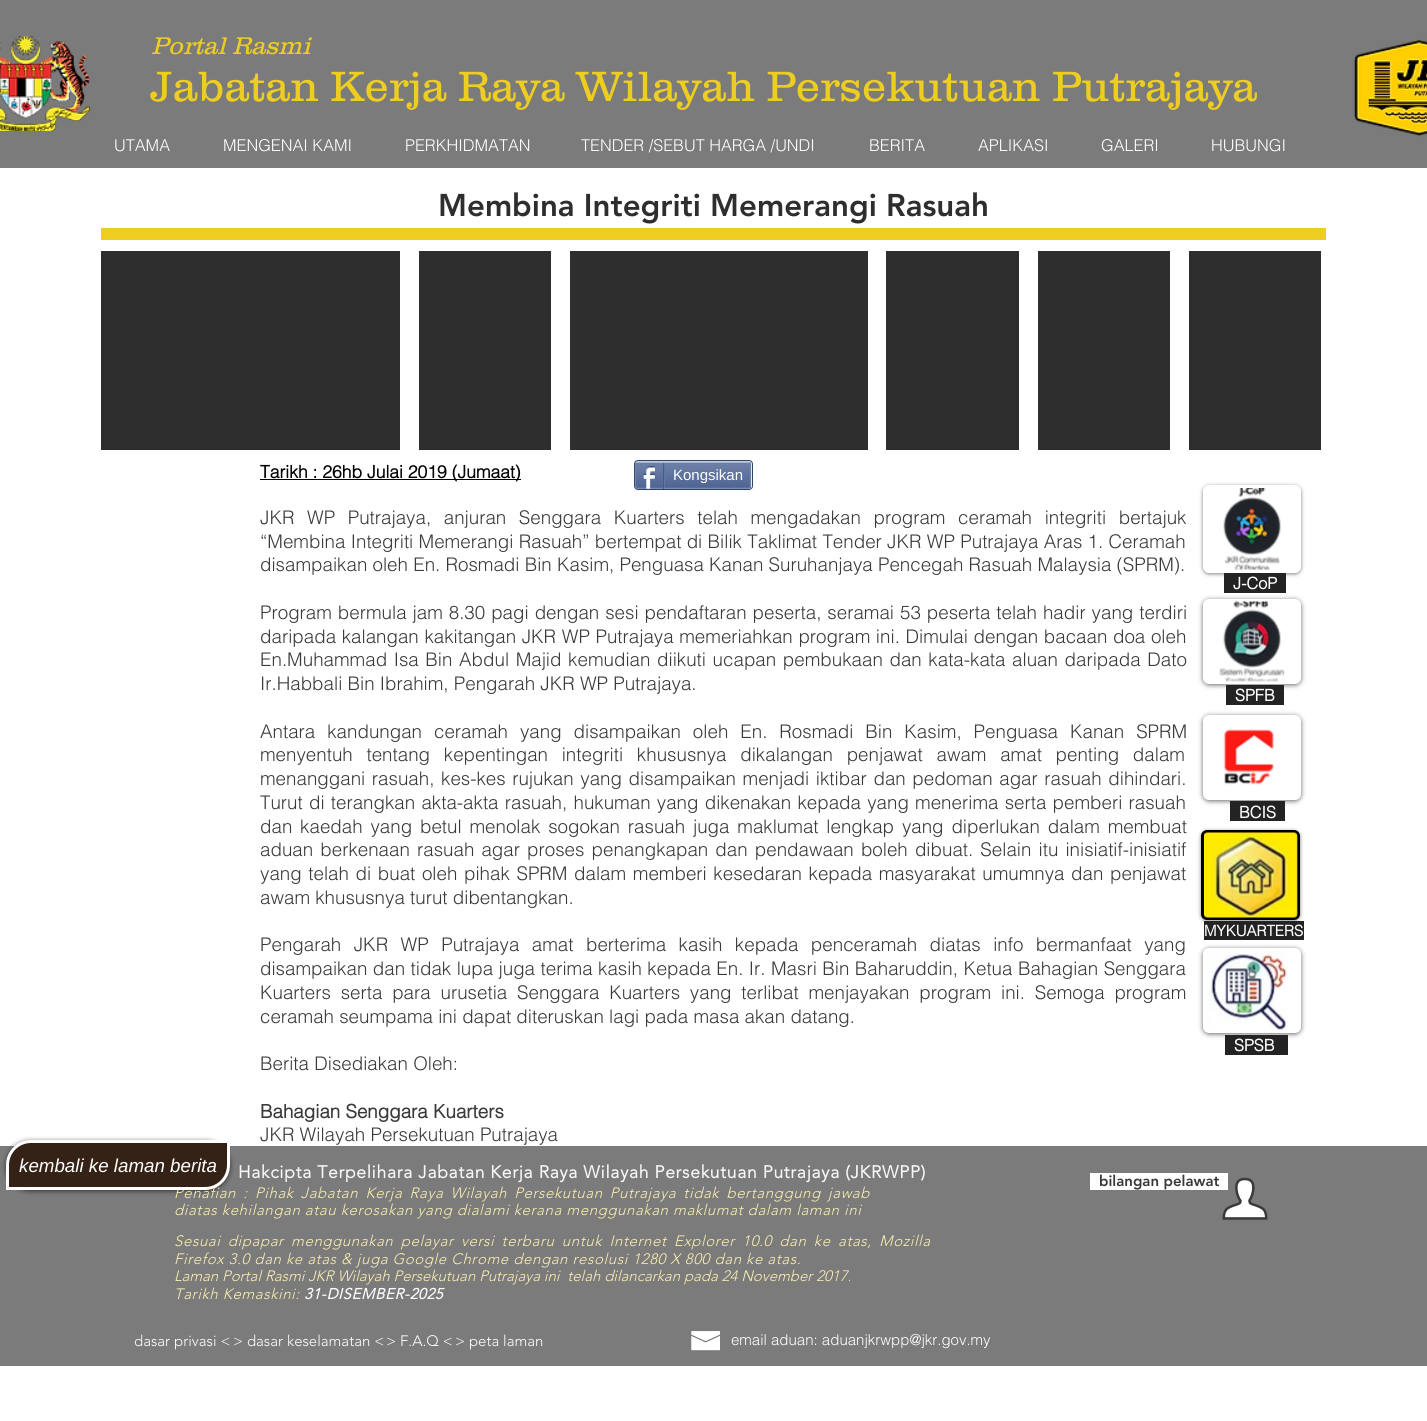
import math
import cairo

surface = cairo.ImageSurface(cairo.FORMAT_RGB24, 1427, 1421)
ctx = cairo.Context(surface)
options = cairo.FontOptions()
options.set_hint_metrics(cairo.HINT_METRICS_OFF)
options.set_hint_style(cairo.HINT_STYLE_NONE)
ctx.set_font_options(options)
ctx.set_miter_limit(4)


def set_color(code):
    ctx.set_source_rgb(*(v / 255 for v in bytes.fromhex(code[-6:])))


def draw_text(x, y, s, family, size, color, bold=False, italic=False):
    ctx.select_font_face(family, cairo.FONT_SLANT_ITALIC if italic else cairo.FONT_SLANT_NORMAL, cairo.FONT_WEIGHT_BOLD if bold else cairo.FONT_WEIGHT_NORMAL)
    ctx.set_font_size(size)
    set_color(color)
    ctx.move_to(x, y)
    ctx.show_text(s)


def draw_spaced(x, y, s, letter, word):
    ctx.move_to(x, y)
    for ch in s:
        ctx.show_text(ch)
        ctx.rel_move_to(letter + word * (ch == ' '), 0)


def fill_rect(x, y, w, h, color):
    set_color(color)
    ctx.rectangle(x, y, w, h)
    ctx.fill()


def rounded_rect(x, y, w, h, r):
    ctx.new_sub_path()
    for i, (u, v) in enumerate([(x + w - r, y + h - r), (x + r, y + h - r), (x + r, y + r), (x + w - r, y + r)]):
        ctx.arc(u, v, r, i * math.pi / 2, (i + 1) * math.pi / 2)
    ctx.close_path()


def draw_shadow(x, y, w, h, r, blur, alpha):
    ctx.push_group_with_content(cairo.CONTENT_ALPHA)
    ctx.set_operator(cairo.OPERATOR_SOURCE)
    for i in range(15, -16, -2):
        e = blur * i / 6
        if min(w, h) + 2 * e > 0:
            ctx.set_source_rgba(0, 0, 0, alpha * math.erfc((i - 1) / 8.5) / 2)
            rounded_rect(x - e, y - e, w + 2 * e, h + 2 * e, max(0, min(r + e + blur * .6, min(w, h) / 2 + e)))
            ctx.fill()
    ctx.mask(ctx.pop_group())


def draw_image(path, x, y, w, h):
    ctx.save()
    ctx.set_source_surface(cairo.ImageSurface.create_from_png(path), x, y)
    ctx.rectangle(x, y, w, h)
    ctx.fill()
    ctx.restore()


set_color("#ffffff")
ctx.paint()
fill_rect(0, 0, 1427, 168, "#7b7b7b")
draw_image("assets/img1.png", 0, 36, 90, 95)
draw_text(151, 54, "Portal Rasmi", "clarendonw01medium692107 Light", 25, "#edcd1f", italic=True)
draw_text(151, 101, "Jabatan Kerja Raya Wilayah Persekutuan Putrajaya", "clarendonw01medium692107 Light", 43.75, "#edcd1f")
draw_image("assets/img2.png", 1353, 39, 74, 98)
draw_text(114, 151, "UTAMA", "helvetica Light", 16.25, "#ffffff")
draw_text(223, 151, "MENGENAI KAMI", "helvetica Light", 16.25, "#ffffff")
draw_text(405, 151, "PERKHIDMATAN", "helvetica Light", 16.25, "#ffffff")
draw_text(581, 151, "TENDER /SEBUT HARGA /UNDI", "helvetica Light", 16.25, "#ffffff")
draw_text(869, 151, "BERITA", "helvetica Light", 16.25, "#ffffff")
draw_text(978, 151, "APLIKASI", "helvetica Light", 16.25, "#ffffff")
draw_text(1101, 151, "GALERI", "helvetica Light", 16.25, "#ffffff")
draw_text(1211, 151, "HUBUNGI", "helvetica Light", 16.25, "#ffffff")
draw_text(438, 216, "Membina Integriti Memerangi Rasuah", "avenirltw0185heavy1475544 Black", 31.25, "#2f2e2e")
fill_rect(101, 228, 1225, 12, "#edcd1f")
fill_rect(101, 251, 299, 199, "#2f2e2e")
fill_rect(419, 251, 132, 199, "#2f2e2e")
fill_rect(570, 251, 298, 199, "#2f2e2e")
fill_rect(886, 251, 133, 199, "#2f2e2e")
fill_rect(1038, 251, 132, 199, "#2f2e2e")
fill_rect(1189, 251, 132, 199, "#2f2e2e")
fill_rect(260, 479, 261, 1, "#000000")
draw_text(260, 478, "Tarikh : 26hb Julai 2019 (Jumaat)", "helvetica", 17.5, "#000000", bold=True)
ctx.select_font_face("helvetica Light")
ctx.set_font_size(18.75)
set_color("#3b3a3a")
draw_spaced(260, 524, "JKR WP Putrajaya, anjuran Senggara Kuarters telah mengadakan program ceramah integriti bertajuk", 0, 7.4)
draw_spaced(260, 548, "“Membina Integriti Memerangi Rasuah” bertempat di Bilik Taklimat Tender JKR WP Putrajaya Aras 1. Ceramah", 0, 0.1)
draw_text(260, 571, "disampaikan oleh En. Rosmadi Bin Kasim, Penguasa Kanan Suruhanjaya Pencegah Rasuah Malaysia (SPRM).", "helvetica Light", 18.75, "#3b3a3a")
draw_spaced(260, 619, "Program bermula jam 8.30 pagi dengan sesi pendaftaran peserta, seramai 53 peserta telah hadir yang terdiri", 0, 0.75)
draw_spaced(260, 643, "daripada kalangan kakitangan JKR WP Putrajaya memeriahkan program ini. Dimulai dengan bacaan doa oleh", 0, 0.4)
draw_spaced(260, 666, "En.Muhammad Isa Bin Abdul Majid kemudian diikuti ucapan pembukaan dan kata-kata aluan daripada Dato", 0, 1.4)
draw_text(260, 690, "Ir.Habbali Bin Ibrahim, Pengarah JKR WP Putrajaya.", "helvetica Light", 18.75, "#3b3a3a")
draw_spaced(260, 738, "Antara kandungan ceramah yang disampaikan oleh En. Rosmadi Bin Kasim, Penguasa Kanan SPRM", 0, 6.75)
draw_spaced(260, 761, "menyentuh tentang kepentingan integriti khususnya dikalangan penjawat awam amat penting dalam", 0, 8.5)
draw_spaced(260, 785, "menanggani rasuah, kes-kes rujukan yang disampaikan menjadi iktibar dan pedoman agar rasuah dihindari.", 0, 1.4)
draw_spaced(260, 809, "Turut di terangkan akta-akta rasuah, hukuman yang dikenakan kepada yang menerima serta pemberi rasuah", 0, 1)
draw_spaced(260, 833, "dan kaedah yang betul menolak sogokan rasuah juga maklumat lengkap yang diperlukan dalam membuat", 0, 2.6)
draw_spaced(260, 856, "aduan berkenaan rasuah agar proses penangkapan dan pendawaan boleh dibuat. Selain itu inisiatif-inisiatif", 0, 1.9)
draw_spaced(260, 880, "yang telah di buat oleh pihak SPRM dalam memberi kesedaran kepada masyarakat umumnya dan penjawat", 0, 1.4)
draw_text(260, 904, "awam khususnya turut dibentangkan.", "helvetica Light", 18.75, "#3b3a3a")
draw_spaced(260, 951, "Pengarah JKR WP Putrajaya amat berterima kasih kepada penceramah diatas info bermanfaat yang", 0, 7.25)
draw_spaced(260, 975, "disampaikan dan tidak lupa juga terima kasih kepada En. Ir. Masri Bin Baharuddin, Ketua Bahagian Senggara", 0, 0.25)
draw_spaced(260, 999, "Kuarters serta para urusetia Senggara Kuarters yang terlibat menjayakan program ini. Semoga program", 0, 4.6)
draw_text(260, 1023, "ceramah seumpama ini dapat diteruskan lagi pada masa akan datang.", "helvetica Light", 18.75, "#3b3a3a")
draw_text(260, 1070, "Berita Disediakan Oleh:", "helvetica Light", 18.75, "#3b3a3a")
draw_text(260, 1118, "Bahagian Senggara Kuarters", "helvetica", 18.75, "#3b3a3a", bold=True)
draw_text(260, 1141, "JKR Wilayah Persekutuan Putrajaya", "helvetica Light", 18.75, "#3b3a3a")
rounded_rect(634.5, 460.5, 118, 29, 3.5)
set_color("#2d4565")
ctx.set_line_width(1)
ctx.stroke()
draw_image("assets/img3.png", 635, 462, 117, 27)
ctx.new_path()
ctx.move_to(636, 462.5)
ctx.line_to(637.5, 462)
ctx.line_to(749, 462)
ctx.line_to(750, 462.5)
set_color("#9aabc6")
ctx.set_line_width(1.2)
ctx.stroke()
ctx.new_path()
ctx.move_to(750, 462.5)
ctx.line_to(750.5, 464)
ctx.line_to(750.5, 486)
ctx.line_to(750, 487.5)
set_color("#6f83ad")
ctx.stroke()
ctx.new_path()
ctx.move_to(750, 487.5)
ctx.line_to(749, 488)
ctx.line_to(637.5, 488)
ctx.line_to(636, 487.5)
set_color("#6176a3")
ctx.stroke()
ctx.new_path()
ctx.move_to(636, 487.5)
ctx.line_to(635.5, 486)
ctx.line_to(635.5, 464)
ctx.line_to(636, 462.5)
set_color("#6f83ad")
ctx.stroke()
draw_image("assets/img4.png", 642, 466, 13, 23)
fill_rect(663, 463, 1, 26, "#425e85")
draw_text(673, 480, "Kongsikan", "Liberation Sans", 15, "#ffffff")
fill_rect(664, 463, 1, 25, "#6176a3")
fill_rect(0, 1146, 1427, 220, "#7b7b7b")
set_color("#000000")
draw_shadow(6, 1141, 224, 50, 25, 2.5, 0.6)
ctx.select_font_face("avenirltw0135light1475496 Light", cairo.FONT_SLANT_ITALIC)
set_color("#f9eeb1")
draw_spaced(174, 1198, "Penafian : Pihak Jabatan Kerja Raya Wilayah Persekutuan Putrajaya tidak bertanggung jawab", 0.6, 2.75)
set_color("#342216")
ctx.new_path()
ctx.move_to(31, 1141.5)
ctx.line_to(228.5, 1141.5)
ctx.line_to(228.5, 1165)
ctx.curve_to(228.5, 1178, 218, 1188.5, 205, 1188.5)
ctx.line_to(7.5, 1188.5)
ctx.line_to(7.5, 1165)
ctx.curve_to(7.5, 1152, 18, 1141.5, 31, 1141.5)
ctx.close_path()
ctx.fill_preserve()
set_color("#ffffff")
ctx.set_line_width(3)
ctx.stroke()
draw_text(19, 1172, "kembali ke laman berita", "Liberation Sans", 18.75, "#ffffff", italic=True)
set_color("#000000")
draw_shadow(1203, 486, 98, 88, 6, 2, 0.5)
set_color("#ffffff")
rounded_rect(1204.5, 486.5, 95, 85, 4.5)
ctx.fill_preserve()
ctx.stroke()
draw_image("assets/img5.png", 1223, 488, 58, 83)
fill_rect(1224, 573, 62, 20, "#232323")
draw_text(1233, 589, "J-CoP", "helvetica", 16.25, "#ffffff", bold=True)
set_color("#000000")
draw_shadow(1203, 600, 98, 85, 6, 2.5, 0.6)
set_color("#ffffff")
rounded_rect(1204.5, 600.5, 95, 82, 4.5)
ctx.fill_preserve()
ctx.stroke()
draw_image("assets/img6.png", 1219, 601, 66, 81)
fill_rect(1226, 685, 58, 20, "#232323")
draw_text(1235, 701, "SPFB", "helvetica", 16.25, "#ffffff", bold=True)
set_color("#000000")
draw_shadow(1203, 716, 98, 85, 6, 2.5, 0.6)
set_color("#ffffff")
rounded_rect(1204.5, 716.5, 95, 82, 4.5)
ctx.fill_preserve()
ctx.stroke()
draw_image("assets/img7.png", 1223, 729, 52, 56)
fill_rect(1230, 801, 55, 20, "#232323")
draw_text(1239, 818, "BCIS", "helvetica", 16.25, "#ffffff", bold=True)
set_color("#000000")
draw_shadow(1201, 831, 99, 90, 6, 2, 0.5)
rounded_rect(1202.5, 831.5, 96, 87, 4.5)
set_color("#000000")
ctx.stroke()
draw_image("assets/img8.png", 1204, 832, 94, 86)
fill_rect(1204, 921, 100, 19, "#232323")
draw_text(1204, 936, "MYKUARTERS", "helvetica", 15, "#ffffff", bold=True)
set_color("#000000")
draw_shadow(1203, 949, 98, 85, 6, 2.5, 0.6)
set_color("#ffffff")
rounded_rect(1204.5, 949.5, 95, 82, 4.5)
ctx.fill_preserve()
ctx.stroke()
draw_image("assets/img9.png", 1206, 950, 82, 80)
fill_rect(1225, 1035, 63, 20, "#232323")
draw_text(1234, 1051, "SPSB", "helvetica", 16.25, "#ffffff", bold=True)
ctx.select_font_face("avenirltw0135light1475496", cairo.FONT_SLANT_NORMAL, cairo.FONT_WEIGHT_BOLD)
ctx.set_font_size(17.5)
set_color("#f7f7f7")
draw_spaced(238, 1178, "Hakcipta Terpelihara Jabatan Kerja Raya Wilayah Persekutuan Putrajaya (JKRWPP)", 0.7, 0)
draw_image("assets/img10.png", 1222, 1177, 46, 43)
fill_rect(1090, 1173, 138, 17, "#ffffff")
draw_text(1099, 1186, "bilangan pelawat", "avenirltw0185heavy1475544 Black", 15, "#3b3a3a")
ctx.select_font_face("avenirltw0135light1475496 Light", cairo.FONT_SLANT_ITALIC)
set_color("#f9eeb1")
draw_spaced(174, 1215, "diatas kehilangan atau kerosakan yang dialami kerana menggunakan maklumat dalam laman ini", 0.6, 0)
draw_spaced(174, 1246, "Sesuai dipapar menggunakan pelayar versi terbaru untuk Internet Explorer 10.0 dan ke atas, Mozilla", 0.6, 2.9)
draw_spaced(174, 1264, "Firefox 3.0 dan ke atas & juga Google Chrome dengan resolusi 1280 X 800 dan ke atas.", 0.6, 0)
draw_text(174, 1281, "Laman Portal Rasmi JKR Wilayah Persekutuan Putrajaya ini  telah dilancarkan pada 24 November 2017.", "avenirltw0135light1475496 Light", 15, "#f9eeb1", italic=True)
draw_spaced(174, 1299, "Tarikh Kemaskini:", 0.6, 0)
ctx.select_font_face("avenirltw0135light1475496", cairo.FONT_SLANT_ITALIC, cairo.FONT_WEIGHT_BOLD)
set_color("#ffffff")
draw_spaced(304, 1299, "31-DISEMBER-2025", 0.6, 0)
draw_text(134, 1346, "dasar privasi <", "avenirltw0135light1475496 Light", 15, "#ffffff")
draw_text(233, 1346, "> dasar keselamatan <", "avenirltw0135light1475496 Light", 15, "#ffffff")
draw_text(386, 1346, "> F.A.Q <", "avenirltw0135light1475496 Light", 15, "#ffffff")
draw_text(455, 1346, "> peta laman", "avenirltw0135light1475496 Light", 15, "#ffffff")
draw_image("assets/img11.png", 691, 1331, 29, 20)
draw_text(731, 1345, "email aduan: aduanjkrwpp@jkr.gov.my", "helvetica Light", 15, "#ffffff")
surface.write_to_png("output.png")
